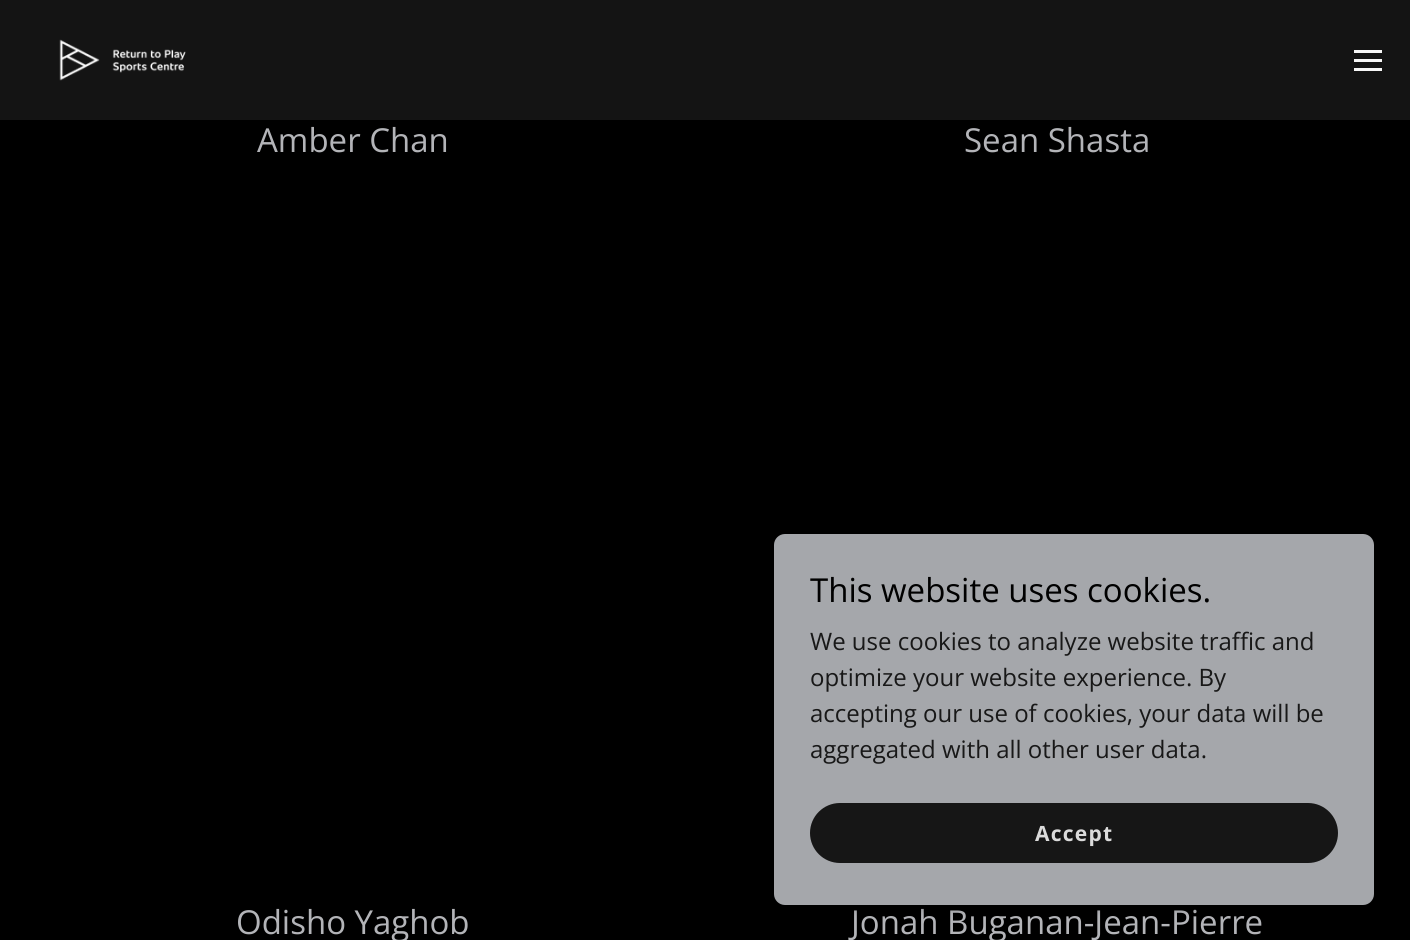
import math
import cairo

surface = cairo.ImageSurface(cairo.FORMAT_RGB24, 1410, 940)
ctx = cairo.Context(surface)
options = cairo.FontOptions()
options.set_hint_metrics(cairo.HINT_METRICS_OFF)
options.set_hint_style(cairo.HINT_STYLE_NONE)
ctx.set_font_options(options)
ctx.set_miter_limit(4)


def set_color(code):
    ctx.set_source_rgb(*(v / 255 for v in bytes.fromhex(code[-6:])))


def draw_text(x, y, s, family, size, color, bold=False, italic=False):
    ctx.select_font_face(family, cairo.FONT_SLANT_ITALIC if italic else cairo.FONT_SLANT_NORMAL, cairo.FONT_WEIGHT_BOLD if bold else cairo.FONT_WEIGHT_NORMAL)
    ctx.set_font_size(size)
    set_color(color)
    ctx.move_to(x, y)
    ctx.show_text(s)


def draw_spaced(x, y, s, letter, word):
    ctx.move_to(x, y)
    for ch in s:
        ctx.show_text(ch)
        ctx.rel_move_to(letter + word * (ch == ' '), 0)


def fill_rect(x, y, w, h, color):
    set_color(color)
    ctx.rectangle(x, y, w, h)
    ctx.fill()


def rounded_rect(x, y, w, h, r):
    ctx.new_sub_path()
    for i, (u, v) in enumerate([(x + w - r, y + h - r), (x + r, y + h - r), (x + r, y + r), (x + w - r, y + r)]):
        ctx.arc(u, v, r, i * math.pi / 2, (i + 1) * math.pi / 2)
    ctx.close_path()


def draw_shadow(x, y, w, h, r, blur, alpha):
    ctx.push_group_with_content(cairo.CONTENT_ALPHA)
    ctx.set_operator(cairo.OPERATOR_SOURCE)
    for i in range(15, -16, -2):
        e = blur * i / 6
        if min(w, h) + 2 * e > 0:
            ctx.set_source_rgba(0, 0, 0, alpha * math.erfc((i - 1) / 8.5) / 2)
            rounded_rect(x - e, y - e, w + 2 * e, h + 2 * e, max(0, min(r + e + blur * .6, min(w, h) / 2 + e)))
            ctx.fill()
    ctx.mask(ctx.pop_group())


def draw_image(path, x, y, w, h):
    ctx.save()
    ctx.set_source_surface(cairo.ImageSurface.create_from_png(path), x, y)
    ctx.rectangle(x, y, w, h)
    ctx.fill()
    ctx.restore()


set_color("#000000")
ctx.paint()
fill_rect(0, 0, 1410, 120, "#141414")
draw_image("assets/img1.png", 59, 39, 127, 42)
fill_rect(1354, 50, 28, 3, "#f7f7f7")
fill_rect(1354, 59, 28, 3, "#f7f7f7")
fill_rect(1354, 68, 28, 3, "#f7f7f7")
draw_text(257, 152, "Amber Chan", "Open Sans", 33, "#b3b4b8")
draw_text(964, 152, "Sean Shasta", "Open Sans", 33, "#b3b4b8")
draw_text(236, 934, "Odisho Yaghob", "Open Sans", 33, "#b3b4b8")
draw_text(851, 934, "Jonah Buganan-Jean-Pierre", "Open Sans", 33, "#b3b4b8")
set_color("#000000")
draw_shadow(774, 537, 600, 371, 11, 4.5, 0.3)
set_color("#a5a7ab")
rounded_rect(774, 534, 600, 371, 11)
ctx.fill()
draw_text(810, 602, "This website uses cookies.", "Open Sans", 33, "#000000")
draw_text(810, 650, "We use cookies to analyze website traffic and", "Open Sans", 24, "#181818")
draw_text(810, 686, "optimize your website experience. By", "Open Sans", 24, "#181818")
draw_text(810, 722, "accepting our use of cookies, your data will be", "Open Sans", 24, "#181818")
draw_text(810, 758, "aggregated with all other user data.", "Open Sans", 24, "#181818")
set_color("#161616")
rounded_rect(810, 803, 528, 60, 30)
ctx.fill()
ctx.select_font_face("Open Sans", cairo.FONT_SLANT_NORMAL, cairo.FONT_WEIGHT_BOLD)
ctx.set_font_size(21)
set_color("#dbdbdb")
draw_spaced(1035, 841, "Accept", 1.25, 0)
surface.write_to_png("output.png")
